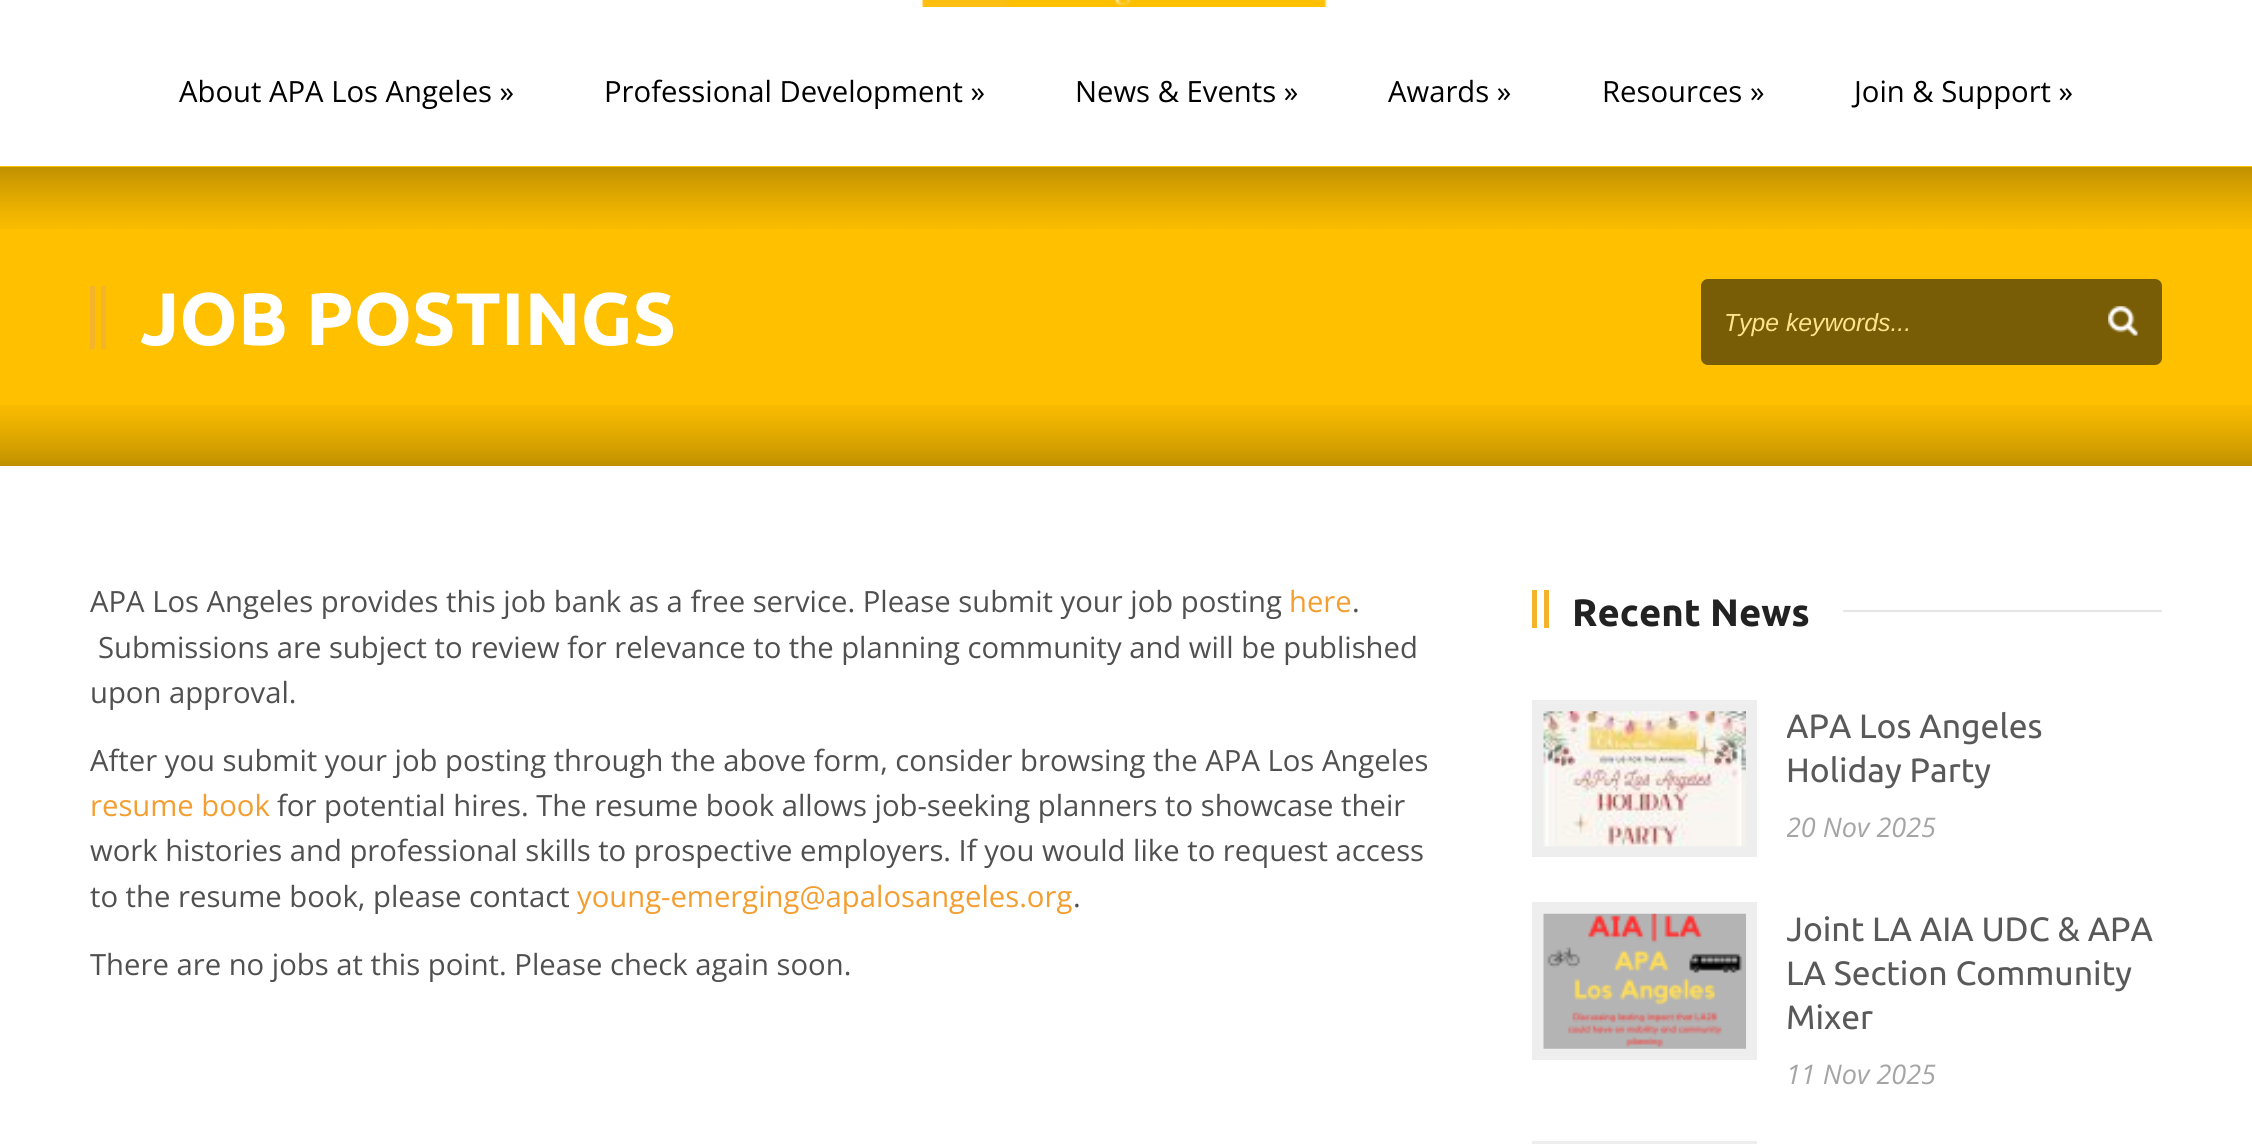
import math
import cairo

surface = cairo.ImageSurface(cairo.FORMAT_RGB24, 2252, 1144)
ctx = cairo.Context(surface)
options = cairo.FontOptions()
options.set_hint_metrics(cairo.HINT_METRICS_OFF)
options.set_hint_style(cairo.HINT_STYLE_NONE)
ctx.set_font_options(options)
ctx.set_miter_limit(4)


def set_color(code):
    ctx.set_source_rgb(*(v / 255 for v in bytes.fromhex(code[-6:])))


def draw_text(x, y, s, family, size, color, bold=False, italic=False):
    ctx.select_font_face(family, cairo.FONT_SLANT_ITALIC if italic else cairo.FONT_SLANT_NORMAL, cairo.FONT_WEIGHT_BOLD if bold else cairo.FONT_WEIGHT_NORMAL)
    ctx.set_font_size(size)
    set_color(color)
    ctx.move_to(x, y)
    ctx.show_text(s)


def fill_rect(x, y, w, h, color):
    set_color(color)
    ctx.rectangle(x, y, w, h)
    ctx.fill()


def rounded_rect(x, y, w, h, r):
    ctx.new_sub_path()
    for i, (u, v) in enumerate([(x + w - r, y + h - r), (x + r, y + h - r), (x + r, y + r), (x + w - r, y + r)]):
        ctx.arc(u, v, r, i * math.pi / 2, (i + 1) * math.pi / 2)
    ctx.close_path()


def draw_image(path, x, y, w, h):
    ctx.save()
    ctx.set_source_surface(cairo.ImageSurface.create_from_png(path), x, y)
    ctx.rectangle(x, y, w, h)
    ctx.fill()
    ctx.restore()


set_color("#ffffff")
ctx.paint()
draw_image("assets/img1.png", 922, 0, 407, 7)
draw_text(179, 102, "About APA Los Angeles »", "Open Sans", 29.25, "#000000")
draw_text(604, 102, "Professional Development »", "Open Sans", 29.25, "#000000")
draw_text(1075, 102, "News & Events »", "Open Sans", 29.25, "#000000")
draw_text(1388, 102, "Awards »", "Open Sans", 29.25, "#000000")
draw_text(1602, 102, "Resources »", "Open Sans", 29.25, "#000000")
draw_text(1854, 102, "Join & Support »", "Open Sans", 29.25, "#000000")
fill_rect(0, 166, 2252, 300, "#ffc000")
draw_image("assets/img2.png", 0, 167, 2252, 62)
fill_rect(90, 286, 5, 63, "#f3b42c")
fill_rect(101, 286, 5, 63, "#f3b42c")
draw_text(140, 345, "JOB POSTINGS", "Ubuntu", 74.25, "#ffffff", bold=True)
set_color("#785c06")
rounded_rect(1701, 279, 461, 86, 7)
ctx.fill()
draw_text(1724, 331, "Type keywords...", "Liberation Sans", 24.75, "#ffe38c", italic=True)
draw_image("assets/img3.png", 2108, 306, 30, 30)
draw_image("assets/img4.png", 0, 405, 2252, 61)
draw_text(90, 612, "APA Los Angeles provides this job bank as a free service. Please submit your job posting", "Open Sans", 29.25, "#505050")
draw_text(1289, 612, "here", "Open Sans", 29.25, "#f39e30")
draw_text(1352, 612, ".", "Open Sans", 29.25, "#505050")
draw_text(98, 658, "Submissions are subject to review for relevance to the planning community and will be published", "Open Sans", 29.25, "#505050")
draw_text(90, 703, "upon approval.", "Open Sans", 29.25, "#505050")
draw_text(90, 771, "After you submit your job posting through the above form, consider browsing the APA Los Angeles", "Open Sans", 29.25, "#505050")
draw_text(90, 816, "resume book", "Open Sans", 29.25, "#f39e30")
draw_text(277, 816, "for potential hires. The resume book allows job-seeking planners to showcase their", "Open Sans", 29.25, "#505050")
draw_text(90, 861, "work histories and professional skills to prospective employers. If you would like to request access", "Open Sans", 29.25, "#505050")
draw_text(90, 907, "to the resume book, please contact", "Open Sans", 29.25, "#505050")
draw_text(577, 907, "young-emerging@apalosangeles.org", "Open Sans", 29.25, "#f39e30")
draw_text(1073, 907, ".", "Open Sans", 29.25, "#505050")
draw_text(90, 975, "There are no jobs at this point. Please check again soon.", "Open Sans", 29.25, "#505050")
fill_rect(1532, 590, 5, 38, "#f3b42c")
fill_rect(1544, 590, 5, 38, "#f3b42c")
draw_text(1572, 626, "Recent News", "Ubuntu", 38.25, "#222222", bold=True)
fill_rect(1843, 610, 319, 2, "#e6e6e6")
fill_rect(1532, 700, 225, 157, "#eeeeee")
draw_image("assets/img5.png", 1543, 711, 203, 136)
ctx.save()
ctx.rectangle(1787, 700, 375, 151)
ctx.clip()
draw_text(1786, 738, "APA Los Angeles", "Ubuntu", 33.75, "#595959")
ctx.restore()
draw_text(1786, 782, "Holiday Party", "Ubuntu", 33.75, "#595959")
ctx.save()
ctx.rectangle(1787, 700, 375, 151)
ctx.clip()
draw_text(1786, 837, "20 Nov 2025", "Open Sans", 27, "#a5a5a5", italic=True)
ctx.restore()
fill_rect(1532, 902, 225, 158, "#eeeeee")
draw_image("assets/img6.png", 1543, 913, 203, 136)
ctx.save()
ctx.rectangle(1787, 902, 375, 194)
ctx.clip()
draw_text(1786, 941, "Joint LA AIA UDC & APA", "Ubuntu", 33.75, "#595959")
ctx.restore()
draw_text(1786, 985, "LA Section Community", "Ubuntu", 33.75, "#595959")
draw_text(1786, 1029, "Mixer", "Ubuntu", 33.75, "#595959")
draw_text(1786, 1084, "11 Nov 2025", "Open Sans", 27, "#a5a5a5", italic=True)
fill_rect(1532, 1141, 225, 3, "#eeeeee")
surface.write_to_png("output.png")
